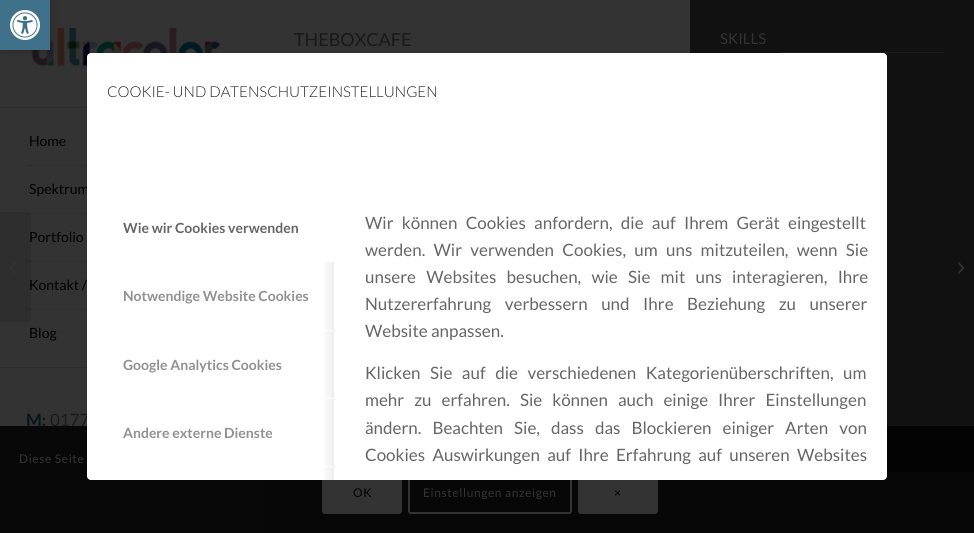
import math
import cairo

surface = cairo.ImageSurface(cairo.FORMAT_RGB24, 974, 533)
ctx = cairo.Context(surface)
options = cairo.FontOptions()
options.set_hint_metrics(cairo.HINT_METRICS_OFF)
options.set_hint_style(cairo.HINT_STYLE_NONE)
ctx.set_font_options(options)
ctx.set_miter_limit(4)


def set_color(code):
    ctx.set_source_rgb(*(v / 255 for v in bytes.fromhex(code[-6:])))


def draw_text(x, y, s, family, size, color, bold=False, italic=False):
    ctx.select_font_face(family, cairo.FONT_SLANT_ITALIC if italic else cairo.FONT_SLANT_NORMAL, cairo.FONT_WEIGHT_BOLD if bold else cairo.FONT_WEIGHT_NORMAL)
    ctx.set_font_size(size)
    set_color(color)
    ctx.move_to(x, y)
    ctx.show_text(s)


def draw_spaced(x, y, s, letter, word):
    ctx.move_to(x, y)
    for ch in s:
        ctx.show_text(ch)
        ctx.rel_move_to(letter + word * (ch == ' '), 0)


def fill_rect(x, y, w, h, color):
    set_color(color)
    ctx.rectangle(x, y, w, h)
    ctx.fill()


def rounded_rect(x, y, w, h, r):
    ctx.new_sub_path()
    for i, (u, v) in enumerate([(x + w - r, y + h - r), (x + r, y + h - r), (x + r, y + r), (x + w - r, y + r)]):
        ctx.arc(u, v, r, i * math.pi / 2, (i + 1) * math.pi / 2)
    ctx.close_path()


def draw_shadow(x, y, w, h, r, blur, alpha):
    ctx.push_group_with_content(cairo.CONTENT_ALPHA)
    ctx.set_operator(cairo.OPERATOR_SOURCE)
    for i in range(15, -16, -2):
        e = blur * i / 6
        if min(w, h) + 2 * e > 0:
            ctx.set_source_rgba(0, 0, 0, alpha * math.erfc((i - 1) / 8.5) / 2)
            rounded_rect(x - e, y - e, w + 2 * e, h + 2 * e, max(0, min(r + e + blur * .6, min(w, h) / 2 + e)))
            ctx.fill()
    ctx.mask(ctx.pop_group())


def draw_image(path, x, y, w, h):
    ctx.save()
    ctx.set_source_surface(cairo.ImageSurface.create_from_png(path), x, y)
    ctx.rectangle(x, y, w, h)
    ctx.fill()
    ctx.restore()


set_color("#333333")
ctx.paint()
draw_image("assets/img2.png", 31, 27, 189, 40)
set_color("#000000")
draw_shadow(0, 0, 50, 50, 0, 5, 0.2)
fill_rect(0, 0, 50, 50, "#3f718a")
draw_image("assets/img1.png", 10, 10, 30, 30)
draw_text(294, 46, "THEBOXCAFE", "Lato", 18, "#191919")
fill_rect(690, 0, 284, 472, "#111111")
draw_text(720, 44, "SKILLS", "Lato", 15, "#333333")
fill_rect(781, 52, 163, 1, "#1e1e1e")
fill_rect(264, 473, 710, 60, "#2f2f2f")
fill_rect(0, 494, 263, 1, "#2d2d2d")
fill_rect(0, 107, 87, 1, "#2d2d2d")
fill_rect(26, 165, 61, 1, "#2d2d2d")
draw_text(29, 146, "Home", "Lato", 14, "#000000")
fill_rect(26, 213, 61, 1, "#2d2d2d")
draw_text(29, 194, "Spektrum", "Lato", 14, "#000000")
fill_rect(26, 261, 61, 1, "#2d2d2d")
draw_text(29, 242, "Portfolio", "Lato", 14, "#000000")
fill_rect(26, 309, 61, 1, "#2d2d2d")
draw_text(29, 290, "Kontakt /", "Lato", 14, "#000000")
draw_text(29, 338, "Blog", "Lato", 14, "#000000")
fill_rect(0, 367, 87, 1, "#2d2d2d")
draw_text(26, 426, "M:", "Lato", 17, "#07151d", bold=True)
draw_text(50, 426, "0177", "Lato", 17, "#191919")
ctx.set_source_rgba(0, 0, 0, 0.1)
ctx.new_path()
ctx.move_to(0, 212)
ctx.line_to(27, 212)
ctx.curve_to(29, 212, 31, 214, 31, 216)
ctx.line_to(31, 318)
ctx.curve_to(31, 320, 29, 322, 27, 322)
ctx.line_to(0, 322)
ctx.close_path()
ctx.fill()
draw_image("assets/img3.png", 10, 262, 6, 12)
ctx.set_source_rgba(0, 0, 0, 0.85)
ctx.rectangle(0, 426, 974, 107)
ctx.fill()
set_color("#333333")
rounded_rect(322, 472, 80, 42, 3)
ctx.fill()
rounded_rect(409, 473, 162, 40, 2)
ctx.stroke()
rounded_rect(578, 472, 80, 42, 3)
ctx.fill()
set_color("#ffffff")
rounded_rect(87, 53, 800, 427, 4)
ctx.fill()
draw_text(107, 97, "COOKIE- UND DATENSCHUTZEINSTELLUNGEN", "Lato Light", 15, "#222222")
ctx.save()
rounded_rect(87, 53, 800, 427, 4)
ctx.clip()
ctx.rectangle(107, 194, 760, 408)
ctx.clip()
ctx.rectangle(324, 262, 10, 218)
ctx.clip()
set_color("#000000")
draw_shadow(337, 204, 512, 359, 0, 10, 0.2)
ctx.restore()
fill_rect(334, 261, 1, 70, "#ffffff")
ctx.new_path()
ctx.move_to(109, 194)
ctx.line_to(336, 194)
ctx.line_to(336, 262)
ctx.line_to(107, 262)
ctx.line_to(107, 196)
ctx.curve_to(107, 195, 108, 194, 109, 194)
ctx.close_path()
ctx.fill()
draw_text(123, 233, "Wie wir Cookies verwenden", "Lato", 14, "#666666", bold=True)
fill_rect(321, 330, 14, 1, "#ffffff")
draw_text(123, 301, "Notwendige Website Cookies", "Lato", 14, "#919191", bold=True)
fill_rect(334, 330, 1, 69, "#ffffff")
fill_rect(321, 398, 14, 1, "#ffffff")
draw_text(123, 370, "Google Analytics Cookies", "Lato", 14, "#919191", bold=True)
fill_rect(334, 398, 1, 69, "#ffffff")
fill_rect(321, 466, 14, 1, "#ffffff")
draw_text(123, 438, "Andere externe Dienste", "Lato", 14, "#919191", bold=True)
fill_rect(334, 466, 1, 14, "#ffffff")
ctx.select_font_face("Lato")
ctx.set_font_size(17)
set_color("#666666")
draw_spaced(365, 229, "Wir können Cookies anfordern, die auf Ihrem Gerät eingestellt", 0, 5)
draw_spaced(365, 256, "werden. Wir verwenden Cookies, um uns mitzuteilen, wenn Sie", 0, 5)
draw_spaced(365, 283, "unsere Websites besuchen, wie Sie mit uns interagieren, Ihre", 0, 7)
draw_spaced(365, 310, "Nutzererfahrung verbessern und Ihre Beziehung zu unserer", 0, 10.25)
draw_text(365, 337, "Website anpassen.", "Lato", 17, "#666666")
draw_spaced(365, 379, "Klicken Sie auf die verschiedenen Kategorienüberschriften, um", 0, 6.25)
draw_spaced(365, 406, "mehr zu erfahren. Sie können auch einige Ihrer Einstellungen", 0, 6.75)
draw_spaced(365, 434, "ändern. Beachten Sie, dass das Blockieren einiger Arten von", 0, 7.75)
draw_spaced(365, 461, "Cookies Auswirkungen auf Ihre Erfahrung auf unseren Websites", 0, 4)
draw_image("assets/img4.png", 958, 262, 6, 12)
ctx.set_font_size(12)
set_color("#333333")
draw_spaced(19, 463, "Diese Seite", 0.6, 0)
set_color("#000000")
draw_spaced(353, 497, "OK", 0.6, 0)
set_color("#333333")
draw_spaced(423, 497, "Einstellungen anzeigen", 0.6, 0)
set_color("#000000")
draw_spaced(614, 497, "×", 0.6, 0)
surface.write_to_png("output.png")
